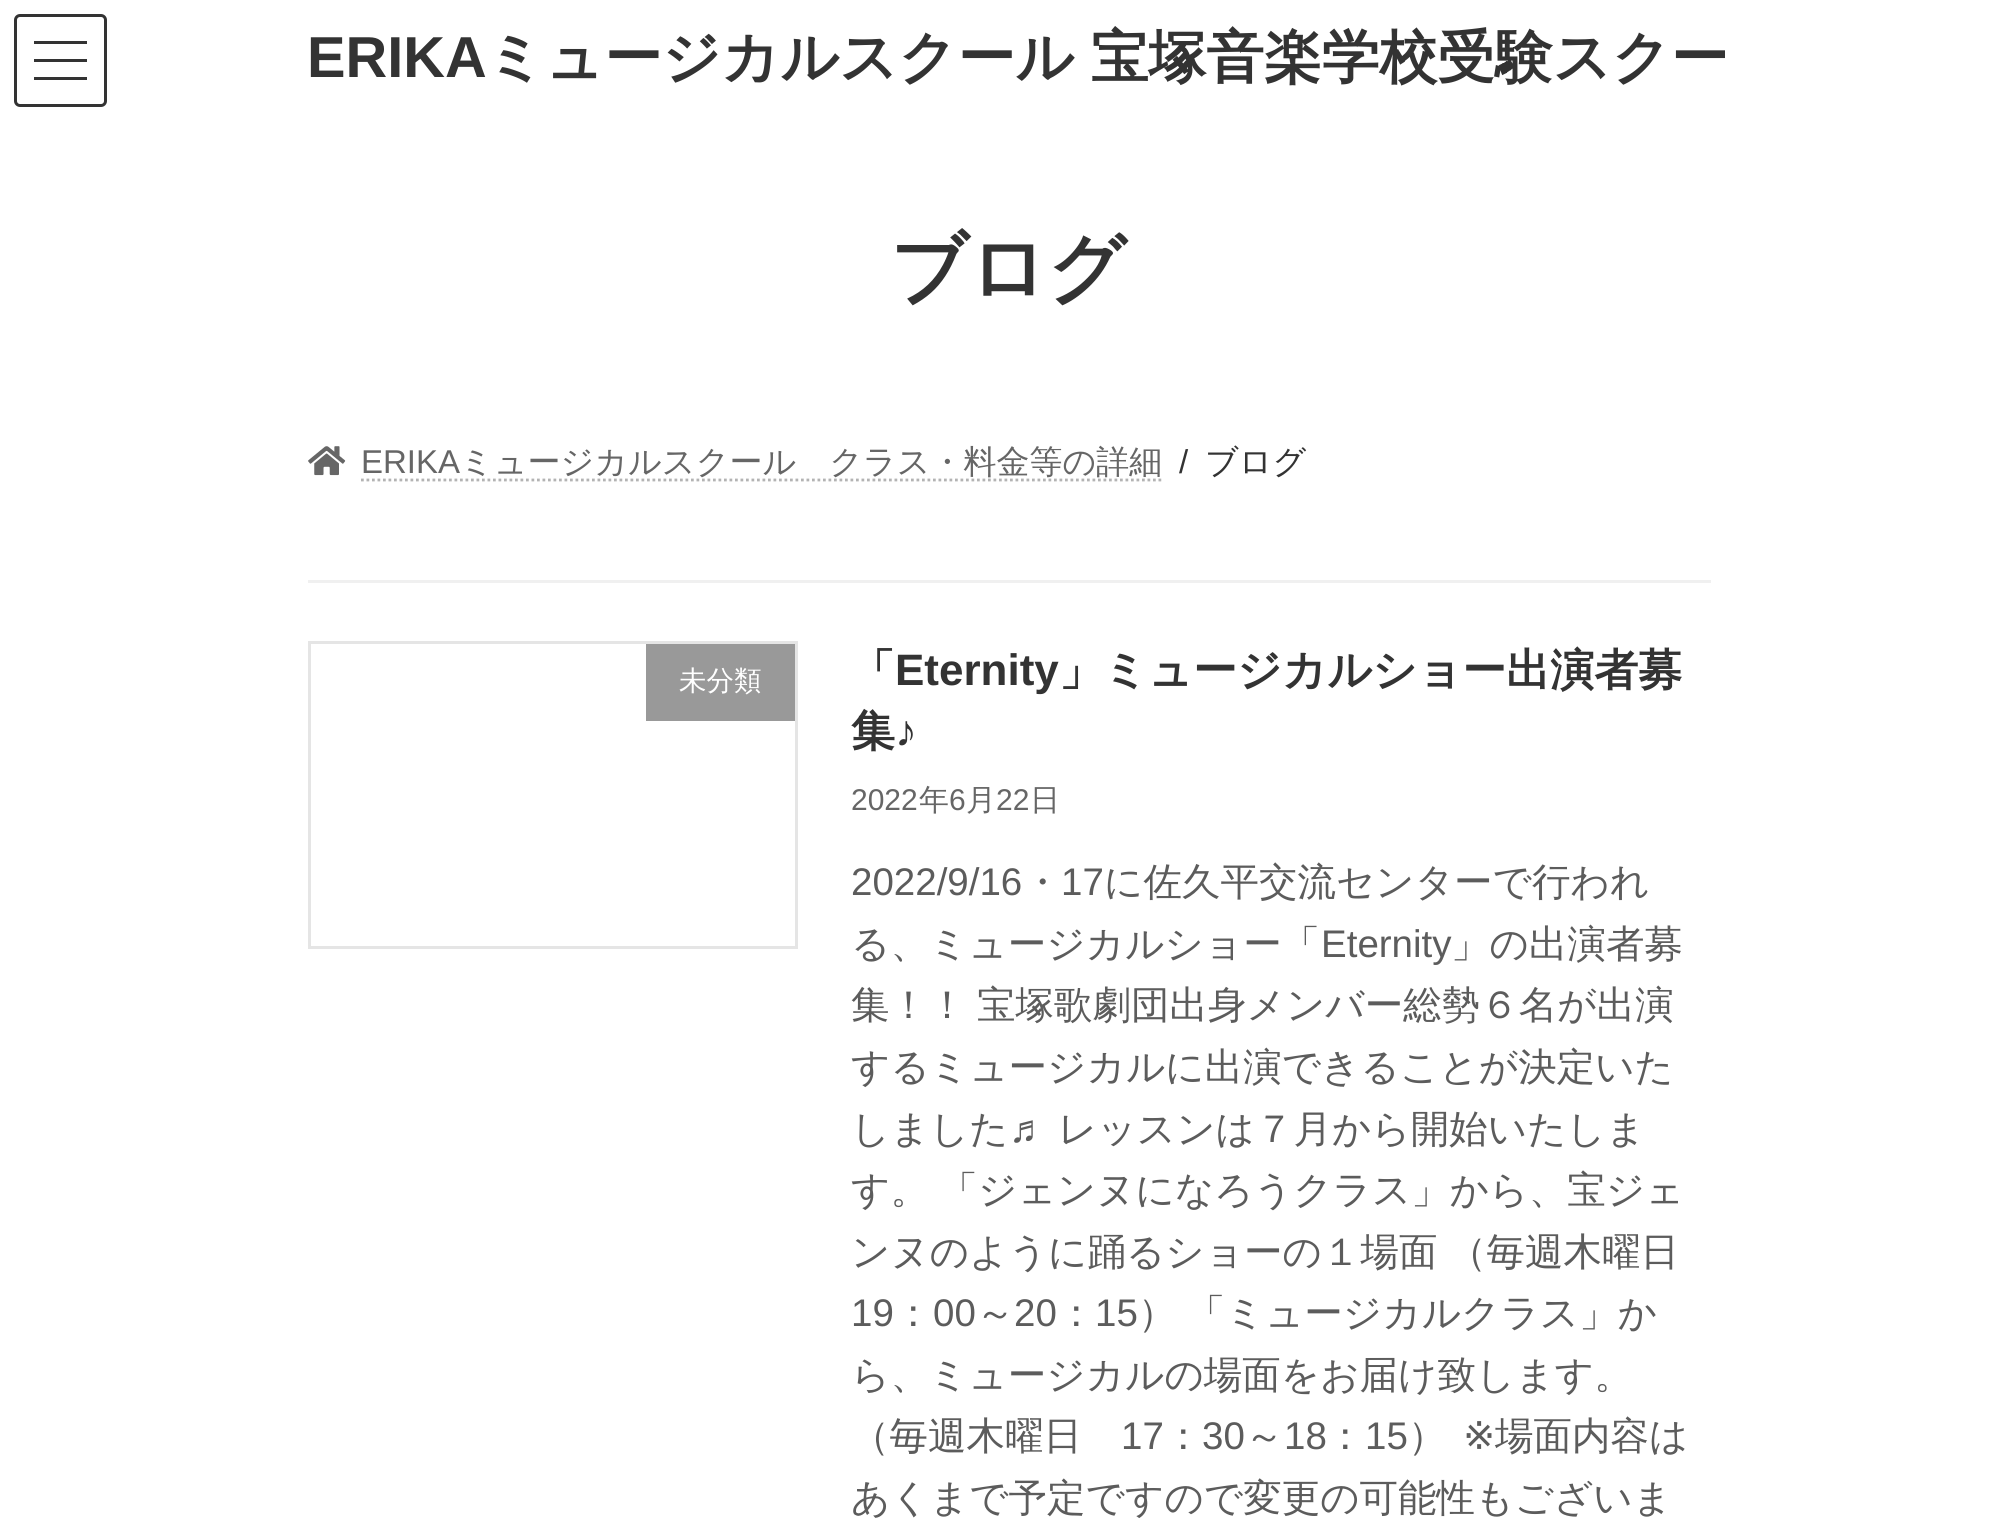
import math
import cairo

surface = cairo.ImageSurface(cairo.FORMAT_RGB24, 2015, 1535)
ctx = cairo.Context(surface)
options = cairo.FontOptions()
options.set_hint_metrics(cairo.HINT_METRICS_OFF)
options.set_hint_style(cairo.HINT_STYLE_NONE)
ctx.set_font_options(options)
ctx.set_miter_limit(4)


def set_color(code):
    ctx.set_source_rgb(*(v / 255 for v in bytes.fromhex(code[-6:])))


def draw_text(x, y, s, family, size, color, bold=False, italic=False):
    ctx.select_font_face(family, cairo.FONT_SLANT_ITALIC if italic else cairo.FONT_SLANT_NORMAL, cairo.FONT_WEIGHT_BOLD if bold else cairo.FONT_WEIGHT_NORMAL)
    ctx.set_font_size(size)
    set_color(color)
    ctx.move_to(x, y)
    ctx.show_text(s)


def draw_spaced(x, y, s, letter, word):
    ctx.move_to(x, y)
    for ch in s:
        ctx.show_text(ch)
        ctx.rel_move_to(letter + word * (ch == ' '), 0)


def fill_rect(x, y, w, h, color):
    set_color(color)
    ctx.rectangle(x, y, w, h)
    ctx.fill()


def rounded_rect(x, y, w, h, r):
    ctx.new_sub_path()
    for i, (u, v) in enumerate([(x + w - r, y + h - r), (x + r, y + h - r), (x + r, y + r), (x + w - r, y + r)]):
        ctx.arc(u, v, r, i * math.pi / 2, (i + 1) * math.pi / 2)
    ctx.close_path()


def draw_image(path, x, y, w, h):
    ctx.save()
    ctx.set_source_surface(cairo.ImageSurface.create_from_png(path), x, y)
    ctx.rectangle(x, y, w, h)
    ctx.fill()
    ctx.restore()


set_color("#ffffff")
ctx.paint()
fill_rect(34, 41, 53, 3, "#333333")
fill_rect(34, 59, 53, 3, "#333333")
fill_rect(34, 77, 53, 3, "#333333")
rounded_rect(15.5, 15.5, 90, 90, 4.5)
ctx.set_line_width(3)
ctx.stroke()
draw_text(307, 77, "ERIKA", "Liberation Sans", 57.75, "#333333", bold=True)
ctx.select_font_face("WenQuanYi Zen Hei", cairo.FONT_SLANT_NORMAL, cairo.FONT_WEIGHT_BOLD)
draw_spaced(486, 77, "ミュージカルスクール 宝塚音楽学校受験スクー", 0, -1)
draw_text(890, 295, "ブログ", "WenQuanYi Zen Hei", 77, "#333333", bold=True)
draw_image("assets/img1.png", 308, 446, 38, 30)
draw_text(361, 473, "ERIKA", "Liberation Sans", 33, "#666666")
ctx.new_path()
ctx.move_to(361, 480)
ctx.line_to(1162.5, 480)
set_color("#b3b3b3")
ctx.set_line_width(2.8)
ctx.set_dash([2.75, 2.75])
ctx.stroke()
draw_text(460, 473, "ミュージカルスクール　クラス・料金等の詳細", "WenQuanYi Zen Hei Medium", 33, "#666666")
draw_text(1179, 473, "/", "Liberation Sans", 33, "#333333")
draw_text(1205, 473, "ブログ", "WenQuanYi Zen Hei Medium", 33, "#333333")
fill_rect(308, 580, 1403, 3, "#f0f0f0")
ctx.rectangle(309.5, 642.5, 487, 305)
set_color("#e5e5e5")
ctx.set_line_width(3)
ctx.set_dash([])
ctx.stroke()
fill_rect(646, 644, 149, 77, "#999999")
draw_text(679, 690, "未分類", "WenQuanYi Zen Hei Medium", 27.5, "#ffffff")
draw_text(851, 685, "「", "WenQuanYi Zen Hei", 44, "#333333", bold=True)
draw_text(895, 685, "Eternity", "Liberation Sans", 44, "#333333", bold=True)
draw_text(1059, 685, "」ミュージカルショー出演者募", "WenQuanYi Zen Hei", 44, "#333333", bold=True)
draw_text(851, 746, "集", "WenQuanYi Zen Hei", 44, "#333333", bold=True)
draw_text(895, 746, "♪", "Liberation Sans", 44, "#333333", bold=True)
draw_text(851, 810, "2022", "Liberation Sans", 30, "#666666")
draw_text(919, 810, "年", "WenQuanYi Zen Hei Medium", 30, "#666666")
draw_text(949, 810, "6", "Liberation Sans", 30, "#666666")
draw_text(966, 810, "月", "WenQuanYi Zen Hei Medium", 30, "#666666")
draw_text(996, 810, "22", "Liberation Sans", 30, "#666666")
draw_text(1030, 810, "日", "WenQuanYi Zen Hei Medium", 30, "#666666")
draw_text(851, 895, "2022/9/16", "Liberation Sans", 38.5, "#5c5c5c")
draw_text(1023, 895, "・", "WenQuanYi Zen Hei Medium", 38.5, "#5c5c5c")
draw_text(1061, 895, "17", "Liberation Sans", 38.5, "#5c5c5c")
draw_text(1104, 895, "に佐久平交流センターで行われ", "WenQuanYi Zen Hei Medium", 38.5, "#5c5c5c")
draw_text(851, 957, "る、ミュージカルショー「", "WenQuanYi Zen Hei Medium", 38.5, "#5c5c5c")
draw_text(1321, 957, "Eternity", "Liberation Sans", 38.5, "#5c5c5c")
draw_text(1451, 957, "」の出演者募", "WenQuanYi Zen Hei Medium", 38.5, "#5c5c5c")
draw_spaced(851, 1018, "集！！ 宝塚歌劇団出身メンバー総勢６名が出演", 0, -1)
draw_text(851, 1080, "するミュージカルに出演できることが決定いた", "WenQuanYi Zen Hei Medium", 38.5, "#5c5c5c")
draw_text(851, 1142, "しました", "WenQuanYi Zen Hei Medium", 38.5, "#5c5c5c")
draw_text(1009, 1142, "♬", "Liberation Sans", 38.5, "#5c5c5c")
draw_text(1058, 1142, "レッスンは７月から開始いたしま", "WenQuanYi Zen Hei Medium", 38.5, "#5c5c5c")
draw_spaced(851, 1203, "す。 「ジェンヌになろうクラス」から、宝ジェ", 0, -1)
draw_spaced(851, 1265, "ンヌのように踊るショーの１場面 （毎週木曜日", 0, -1)
draw_text(851, 1326, "19", "Liberation Sans", 38.5, "#5c5c5c")
draw_text(894, 1326, "：", "WenQuanYi Zen Hei Medium", 38.5, "#5c5c5c")
draw_text(933, 1326, "00", "Liberation Sans", 38.5, "#5c5c5c")
draw_text(976, 1326, "～", "WenQuanYi Zen Hei Medium", 38.5, "#5c5c5c")
draw_text(1014, 1326, "20", "Liberation Sans", 38.5, "#5c5c5c")
draw_text(1057, 1326, "：", "WenQuanYi Zen Hei Medium", 38.5, "#5c5c5c")
draw_text(1095, 1326, "15", "Liberation Sans", 38.5, "#5c5c5c")
ctx.select_font_face("WenQuanYi Zen Hei Medium")
draw_spaced(1138, 1326, "） 「ミュージカルクラス」か", 0, -1)
draw_text(851, 1388, "ら、ミュージカルの場面をお届け致します。", "WenQuanYi Zen Hei Medium", 38.5, "#5c5c5c")
draw_text(851, 1449, "（毎週木曜日", "WenQuanYi Zen Hei Medium", 38.5, "#5c5c5c")
draw_text(1121, 1449, "17", "Liberation Sans", 38.5, "#5c5c5c")
draw_text(1164, 1449, "：", "WenQuanYi Zen Hei Medium", 38.5, "#5c5c5c")
draw_text(1202, 1449, "30", "Liberation Sans", 38.5, "#5c5c5c")
draw_text(1245, 1449, "～", "WenQuanYi Zen Hei Medium", 38.5, "#5c5c5c")
draw_text(1284, 1449, "18", "Liberation Sans", 38.5, "#5c5c5c")
draw_text(1326, 1449, "：", "WenQuanYi Zen Hei Medium", 38.5, "#5c5c5c")
draw_text(1365, 1449, "15", "Liberation Sans", 38.5, "#5c5c5c")
draw_text(1408, 1449, "）", "WenQuanYi Zen Hei Medium", 38.5, "#5c5c5c")
draw_text(1463, 1449, "※", "DejaVu Sans", 38.5, "#5c5c5c")
draw_text(1495, 1449, "場面内容は", "WenQuanYi Zen Hei Medium", 38.5, "#5c5c5c")
draw_text(851, 1511, "あくまで予定ですので変更の可能性もございま", "WenQuanYi Zen Hei Medium", 38.5, "#5c5c5c")
surface.write_to_png("output.png")
